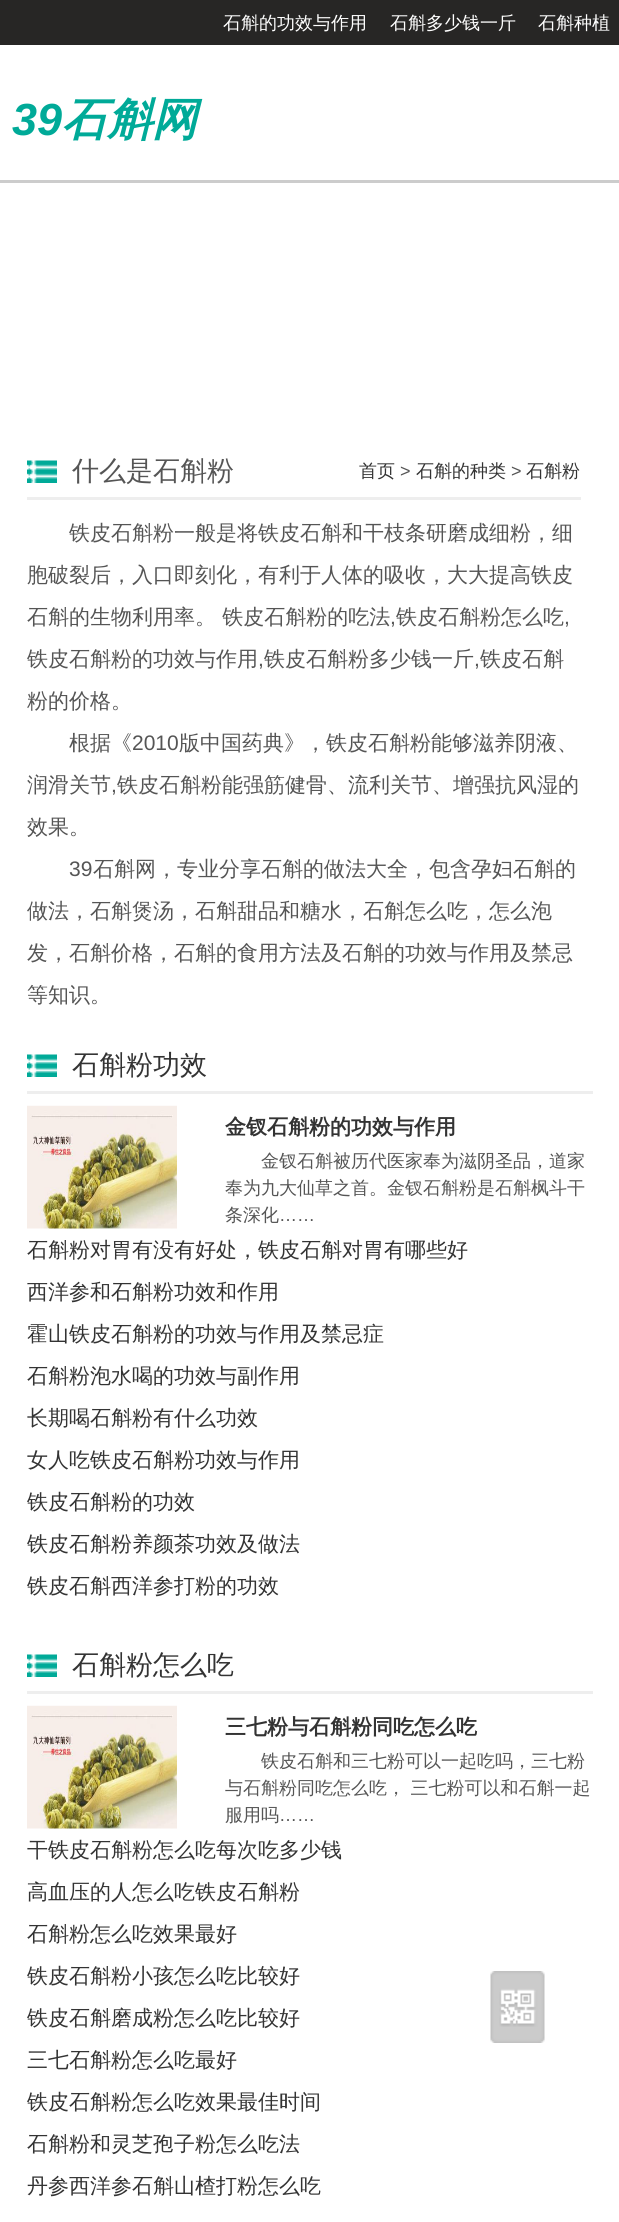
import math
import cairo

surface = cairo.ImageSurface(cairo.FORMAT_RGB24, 619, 2222)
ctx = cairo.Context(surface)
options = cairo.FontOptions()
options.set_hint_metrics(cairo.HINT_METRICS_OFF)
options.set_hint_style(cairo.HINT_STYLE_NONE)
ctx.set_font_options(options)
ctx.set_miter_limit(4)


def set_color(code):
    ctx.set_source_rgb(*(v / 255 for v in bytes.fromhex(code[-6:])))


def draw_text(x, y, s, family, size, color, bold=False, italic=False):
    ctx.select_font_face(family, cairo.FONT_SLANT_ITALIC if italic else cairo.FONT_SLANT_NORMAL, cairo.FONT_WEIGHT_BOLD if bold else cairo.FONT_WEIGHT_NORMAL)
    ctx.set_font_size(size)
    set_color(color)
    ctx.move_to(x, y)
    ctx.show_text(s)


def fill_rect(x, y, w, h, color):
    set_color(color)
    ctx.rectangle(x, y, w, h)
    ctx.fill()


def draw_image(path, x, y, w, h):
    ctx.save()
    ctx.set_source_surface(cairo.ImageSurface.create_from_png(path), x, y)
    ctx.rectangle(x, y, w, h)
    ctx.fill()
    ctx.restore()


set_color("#ffffff")
ctx.paint()
fill_rect(0, 0, 619, 45, "#272625")
draw_text(223, 29, "石斛的功效与作用", "WenQuanYi Zen Hei Medium", 18, "#ffffff")
draw_text(390, 29, "石斛多少钱一斤", "WenQuanYi Zen Hei Medium", 18, "#ffffff")
draw_text(538, 29, "石斛种植", "WenQuanYi Zen Hei Medium", 18, "#ffffff")
draw_text(12, 135, "39", "Liberation Sans", 45, "#00aa98", bold=True, italic=True)
draw_text(62, 135, "石斛网", "WenQuanYi Zen Hei", 45, "#00aa98", bold=True, italic=True)
fill_rect(0, 180, 619, 3, "#cccccc")
draw_image("assets/img1.png", 27, 460, 30, 23)
fill_rect(27, 497, 554, 3, "#eeeeee")
draw_text(72, 480, "什么是石斛粉", "WenQuanYi Zen Hei Medium", 27, "#555555")
draw_text(359, 477, "首页", "WenQuanYi Zen Hei Medium", 18, "#333333")
draw_text(400, 477, ">", "Liberation Sans", 18, "#555555")
draw_text(416, 477, "石斛的种类", "WenQuanYi Zen Hei Medium", 18, "#333333")
draw_text(511, 477, ">", "Liberation Sans", 18, "#555555")
draw_text(526, 477, "石斛粉", "WenQuanYi Zen Hei Medium", 18, "#333333")
draw_text(69, 540, "铁皮石斛粉一般是将铁皮石斛和干枝条研磨成细粉，细", "WenQuanYi Zen Hei Medium", 21, "#555555")
draw_text(27, 582, "胞破裂后，入口即刻化，有利于人体的吸收，大大提高铁皮", "WenQuanYi Zen Hei Medium", 21, "#555555")
draw_text(27, 624, "石斛的生物利用率。 铁皮石斛粉的吃法", "WenQuanYi Zen Hei Medium", 21, "#555555")
draw_text(390, 624, ",", "Liberation Sans", 21, "#555555")
draw_text(396, 624, "铁皮石斛粉怎么吃", "WenQuanYi Zen Hei Medium", 21, "#555555")
draw_text(564, 624, ",", "Liberation Sans", 21, "#555555")
draw_text(27, 666, "铁皮石斛粉的功效与作用", "WenQuanYi Zen Hei Medium", 21, "#555555")
draw_text(258, 666, ",", "Liberation Sans", 21, "#555555")
draw_text(264, 666, "铁皮石斛粉多少钱一斤", "WenQuanYi Zen Hei Medium", 21, "#555555")
draw_text(474, 666, ",", "Liberation Sans", 21, "#555555")
draw_text(480, 666, "铁皮石斛", "WenQuanYi Zen Hei Medium", 21, "#555555")
draw_text(27, 708, "粉的价格。", "WenQuanYi Zen Hei Medium", 21, "#555555")
draw_text(69, 750, "根据《", "WenQuanYi Zen Hei Medium", 21, "#555555")
draw_text(132, 750, "2010", "Liberation Sans", 21, "#555555")
draw_text(179, 750, "版中国药典》，铁皮石斛粉能够滋养阴液、", "WenQuanYi Zen Hei Medium", 21, "#555555")
draw_text(27, 792, "润滑关节", "WenQuanYi Zen Hei Medium", 21, "#555555")
draw_text(111, 792, ",", "Liberation Sans", 21, "#555555")
draw_text(117, 792, "铁皮石斛粉能强筋健骨、流利关节、增强抗风湿的", "WenQuanYi Zen Hei Medium", 21, "#555555")
draw_text(27, 834, "效果。", "WenQuanYi Zen Hei Medium", 21, "#555555")
draw_text(69, 876, "39", "Liberation Sans", 21, "#555555")
draw_text(93, 876, "石斛网，专业分享石斛的做法大全，包含孕妇石斛的", "WenQuanYi Zen Hei Medium", 21, "#555555")
draw_text(27, 918, "做法，石斛煲汤，石斛甜品和糖水，石斛怎么吃，怎么泡", "WenQuanYi Zen Hei Medium", 21, "#555555")
draw_text(27, 960, "发，石斛价格，石斛的食用方法及石斛的功效与作用及禁忌", "WenQuanYi Zen Hei Medium", 21, "#555555")
draw_text(27, 1002, "等知识。", "WenQuanYi Zen Hei Medium", 21, "#555555")
draw_image("assets/img1.png", 27, 1054, 30, 23)
fill_rect(27, 1091, 566, 3, "#eeeeee")
draw_text(72, 1074, "石斛粉功效", "WenQuanYi Zen Hei Medium", 27, "#333333")
draw_image("assets/img2.png", 27, 1105, 150, 124)
draw_text(225, 1134, "金钗石斛粉的功效与作用", "WenQuanYi Zen Hei", 21, "#333333", bold=True)
draw_text(261, 1167, "金钗石斛被历代医家奉为滋阴圣品，道家", "WenQuanYi Zen Hei Medium", 18, "#555555")
draw_text(225, 1194, "奉为九大仙草之首。金钗石斛粉是石斛枫斗干", "WenQuanYi Zen Hei Medium", 18, "#555555")
draw_text(225, 1221, "条深化", "WenQuanYi Zen Hei Medium", 18, "#555555")
draw_text(279, 1221, "……", "Liberation Sans", 18, "#555555")
draw_text(27, 1257, "石斛粉对胃有没有好处，铁皮石斛对胃有哪些好", "WenQuanYi Zen Hei Medium", 21, "#333333")
draw_text(27, 1299, "西洋参和石斛粉功效和作用", "WenQuanYi Zen Hei Medium", 21, "#333333")
draw_text(27, 1341, "霍山铁皮石斛粉的功效与作用及禁忌症", "WenQuanYi Zen Hei Medium", 21, "#333333")
draw_text(27, 1383, "石斛粉泡水喝的功效与副作用", "WenQuanYi Zen Hei Medium", 21, "#333333")
draw_text(27, 1425, "长期喝石斛粉有什么功效", "WenQuanYi Zen Hei Medium", 21, "#333333")
draw_text(27, 1467, "女人吃铁皮石斛粉功效与作用", "WenQuanYi Zen Hei Medium", 21, "#333333")
draw_text(27, 1509, "铁皮石斛粉的功效", "WenQuanYi Zen Hei Medium", 21, "#333333")
draw_text(27, 1551, "铁皮石斛粉养颜茶功效及做法", "WenQuanYi Zen Hei Medium", 21, "#333333")
draw_text(27, 1593, "铁皮石斛西洋参打粉的功效", "WenQuanYi Zen Hei Medium", 21, "#333333")
draw_image("assets/img1.png", 27, 1654, 30, 23)
fill_rect(27, 1691, 566, 3, "#eeeeee")
draw_text(72, 1674, "石斛粉怎么吃", "WenQuanYi Zen Hei Medium", 27, "#333333")
draw_image("assets/img2.png", 27, 1705, 150, 124)
draw_text(225, 1734, "三七粉与石斛粉同吃怎么吃", "WenQuanYi Zen Hei", 21, "#333333", bold=True)
draw_text(261, 1767, "铁皮石斛和三七粉可以一起吃吗，三七粉", "WenQuanYi Zen Hei Medium", 18, "#555555")
draw_text(225, 1794, "与石斛粉同吃怎么吃， 三七粉可以和石斛一起", "WenQuanYi Zen Hei Medium", 18, "#555555")
draw_text(225, 1821, "服用吗", "WenQuanYi Zen Hei Medium", 18, "#555555")
draw_text(279, 1821, "……", "Liberation Sans", 18, "#555555")
draw_text(27, 1857, "干铁皮石斛粉怎么吃每次吃多少钱", "WenQuanYi Zen Hei Medium", 21, "#333333")
draw_text(27, 1899, "高血压的人怎么吃铁皮石斛粉", "WenQuanYi Zen Hei Medium", 21, "#333333")
draw_text(27, 1941, "石斛粉怎么吃效果最好", "WenQuanYi Zen Hei Medium", 21, "#333333")
draw_text(27, 1983, "铁皮石斛粉小孩怎么吃比较好", "WenQuanYi Zen Hei Medium", 21, "#333333")
draw_text(27, 2025, "铁皮石斛磨成粉怎么吃比较好", "WenQuanYi Zen Hei Medium", 21, "#333333")
draw_text(27, 2067, "三七石斛粉怎么吃最好", "WenQuanYi Zen Hei Medium", 21, "#333333")
draw_text(27, 2109, "铁皮石斛粉怎么吃效果最佳时间", "WenQuanYi Zen Hei Medium", 21, "#333333")
draw_text(27, 2151, "石斛粉和灵芝孢子粉怎么吃法", "WenQuanYi Zen Hei Medium", 21, "#333333")
draw_text(27, 2193, "丹参西洋参石斛山楂打粉怎么吃", "WenQuanYi Zen Hei Medium", 21, "#333333")
draw_image("assets/img3.png", 490, 1971, 55, 72)
surface.write_to_png("output.png")
